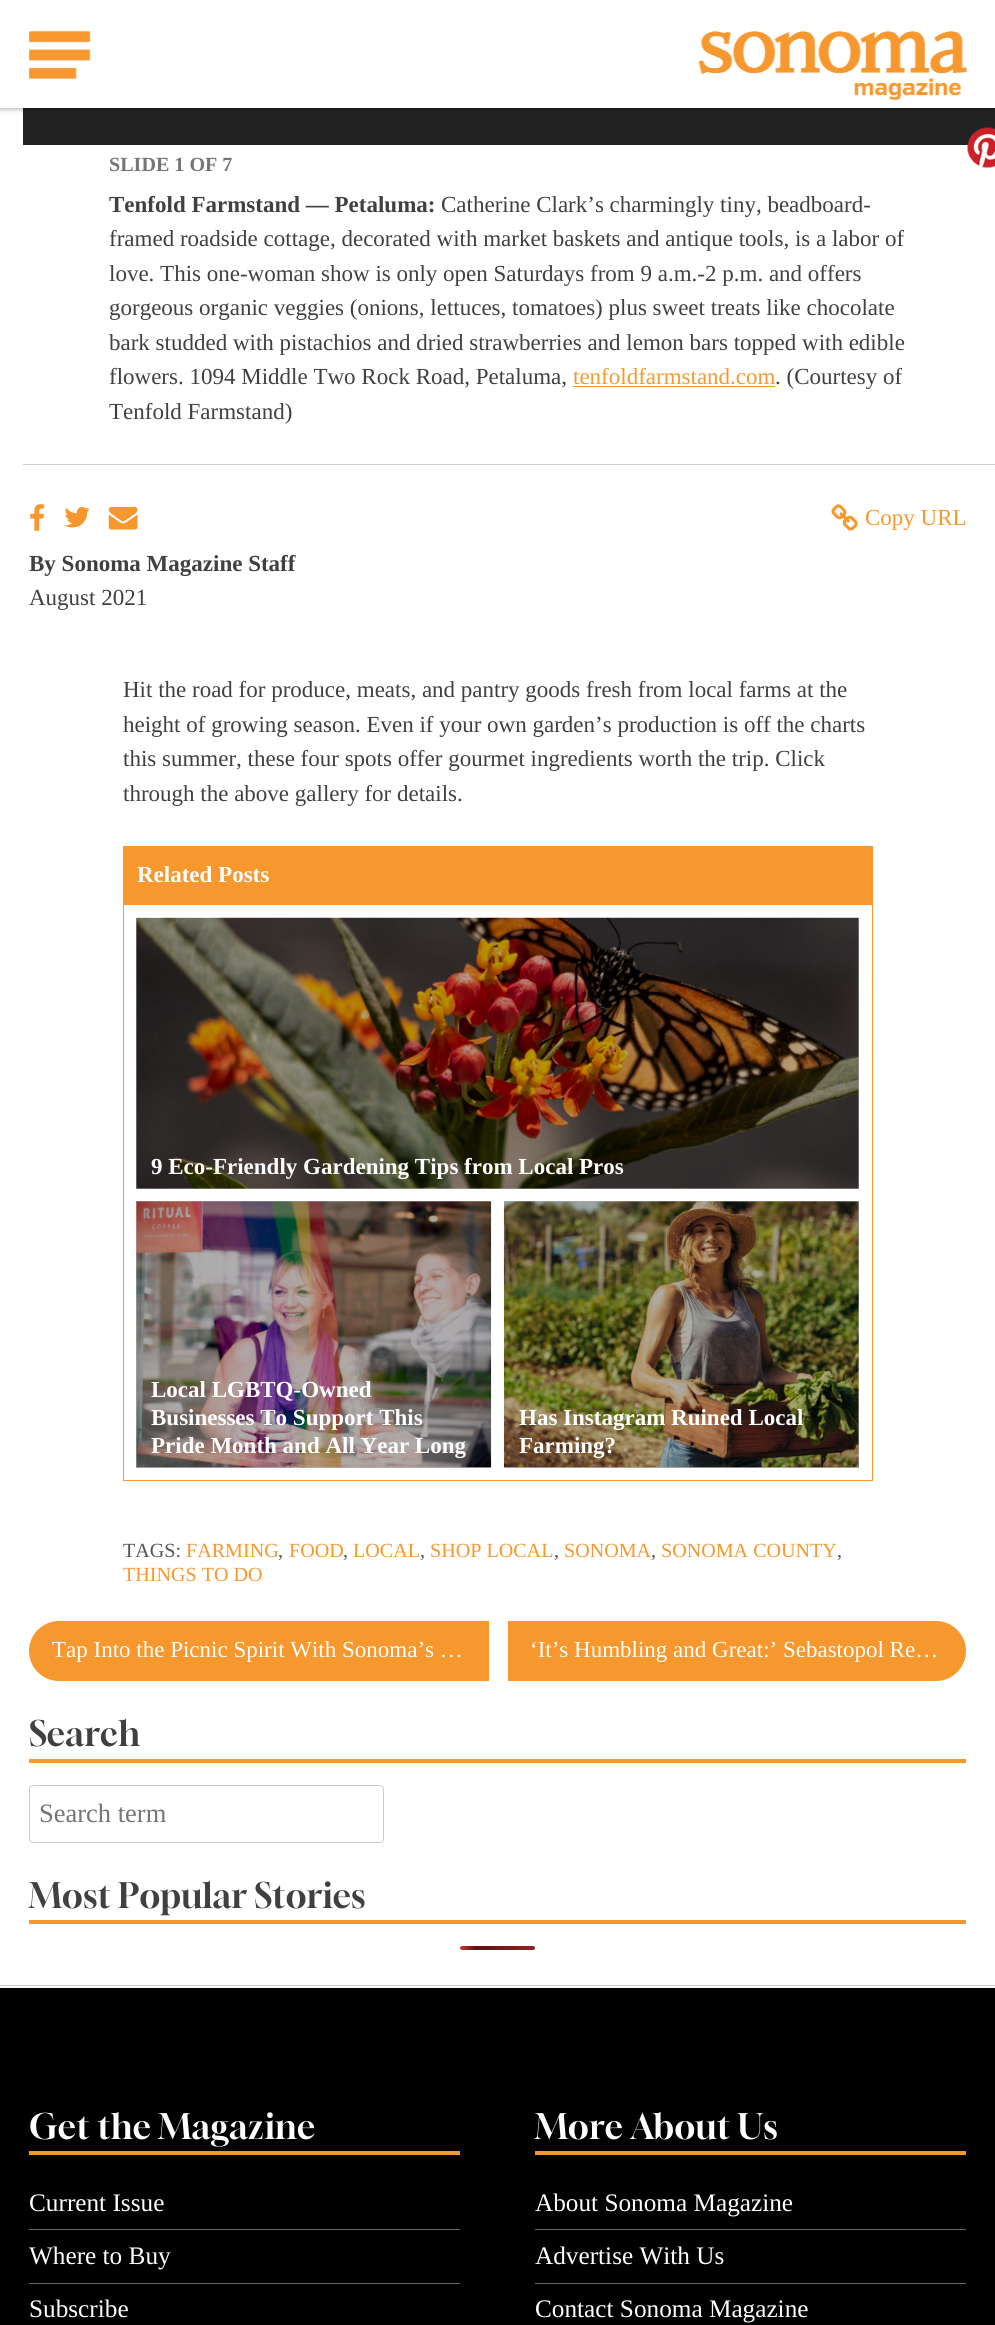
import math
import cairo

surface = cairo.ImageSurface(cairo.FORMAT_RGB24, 995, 2325)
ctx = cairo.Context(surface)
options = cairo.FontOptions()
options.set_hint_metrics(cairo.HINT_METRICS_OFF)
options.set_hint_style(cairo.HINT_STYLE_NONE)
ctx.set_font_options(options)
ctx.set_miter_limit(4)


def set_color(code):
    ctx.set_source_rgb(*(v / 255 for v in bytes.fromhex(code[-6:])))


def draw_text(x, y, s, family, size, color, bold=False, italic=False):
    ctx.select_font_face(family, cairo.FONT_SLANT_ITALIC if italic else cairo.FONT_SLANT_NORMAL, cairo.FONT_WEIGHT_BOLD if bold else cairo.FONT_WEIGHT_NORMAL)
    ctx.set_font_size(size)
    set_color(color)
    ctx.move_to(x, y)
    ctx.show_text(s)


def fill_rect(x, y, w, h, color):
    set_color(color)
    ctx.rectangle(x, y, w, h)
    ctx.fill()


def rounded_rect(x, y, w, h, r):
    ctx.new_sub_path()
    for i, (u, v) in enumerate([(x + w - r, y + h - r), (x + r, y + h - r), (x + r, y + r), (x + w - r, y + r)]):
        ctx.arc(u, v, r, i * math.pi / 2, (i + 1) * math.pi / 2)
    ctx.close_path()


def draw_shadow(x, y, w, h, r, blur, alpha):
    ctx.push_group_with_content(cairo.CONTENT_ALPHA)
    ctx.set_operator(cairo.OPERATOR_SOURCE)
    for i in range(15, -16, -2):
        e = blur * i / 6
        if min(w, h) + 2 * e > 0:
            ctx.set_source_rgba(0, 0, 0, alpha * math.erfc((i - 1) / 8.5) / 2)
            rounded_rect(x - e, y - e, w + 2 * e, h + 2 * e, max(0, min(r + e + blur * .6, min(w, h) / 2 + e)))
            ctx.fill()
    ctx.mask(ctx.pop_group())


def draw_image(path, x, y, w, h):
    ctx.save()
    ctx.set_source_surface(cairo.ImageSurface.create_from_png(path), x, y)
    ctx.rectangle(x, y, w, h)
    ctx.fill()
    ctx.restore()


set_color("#ffffff")
ctx.paint()
fill_rect(504, 1201, 355, 267, "#b3b3b3")
fill_rect(136, 1201, 355, 267, "#b3b3b3")
fill_rect(136, 918, 723, 271, "#b3b3b3")
fill_rect(23, 108, 972, 37, "#222222")
set_color("#000000")
draw_shadow(0, 0, 995, 108, 0, 3, 0.45)
fill_rect(0, 0, 995, 108, "#ffffff")
draw_image("assets/img1.png", 29, 31, 62, 48)
draw_image("assets/img2.png", 698, 31, 269, 69)
draw_image("assets/img3.png", 967, 127, 28, 41)
fill_rect(23, 464, 972, 1, "#cccccc")
draw_text(109, 171, "SLIDE 1 OF 7", "Liberation Serif", 20.1, "#757575", bold=True)
draw_text(109, 212, "Tenfold Farmstand — Petaluma:", "Liberation Serif", 23, "#404040", bold=True)
draw_text(441, 212, "Catherine Clark’s charmingly tiny, beadboard-", "Liberation Serif", 23, "#404040")
draw_text(109, 246, "framed roadside cottage, decorated with market baskets and antique tools, is a labor of", "Liberation Serif", 23, "#404040")
draw_text(109, 281, "love. This one-woman show is only open Saturdays from 9 a.m.-2 p.m. and offers", "Liberation Serif", 23, "#404040")
draw_text(109, 315, "gorgeous organic veggies (onions, lettuces, tomatoes) plus sweet treats like chocolate", "Liberation Serif", 23, "#404040")
draw_text(109, 350, "bark studded with pistachios and dried strawberries and lemon bars topped with edible", "Liberation Serif", 23, "#404040")
draw_text(109, 384, "flowers. 1094 Middle Two Rock Road, Petaluma,", "Liberation Serif", 23, "#404040")
draw_text(573, 384, "tenfoldfarmstand.com", "Liberation Serif", 23, "#f7982e")
fill_rect(573, 386, 202, 1, "#f7982e")
draw_text(775, 384, ". (Courtesy of", "Liberation Serif", 23, "#404040")
draw_text(109, 419, "Tenfold Farmstand)", "Liberation Serif", 23, "#404040")
draw_image("assets/img4.png", 30, 504, 15, 27)
draw_image("assets/img5.png", 64, 507, 26, 21)
draw_image("assets/img6.png", 108, 506, 30, 24)
draw_image("assets/img7.png", 831, 504, 27, 27)
draw_text(865, 525, "Copy URL", "Liberation Serif", 23, "#f7982e")
draw_text(29, 571, "By Sonoma Magazine Staff", "Liberation Serif", 23, "#404040", bold=True)
draw_text(29, 605, "August 2021", "Liberation Serif", 23, "#404040")
draw_text(123, 697, "Hit the road for produce, meats, and pantry goods fresh from local farms at the", "Liberation Serif", 23, "#404040")
draw_text(123, 732, "height of growing season. Even if your own garden’s production is off the charts", "Liberation Serif", 23, "#404040")
draw_text(123, 766, "this summer, these four spots offer gourmet ingredients worth the trip. Click", "Liberation Serif", 23, "#404040")
draw_text(123, 801, "through the above gallery for details.", "Liberation Serif", 23, "#404040")
fill_rect(123, 846, 750, 58, "#f7982e")
draw_text(137, 882, "Related Posts", "Liberation Serif", 23, "#ffffff", bold=True)
ctx.rectangle(123.5, 904.5, 749, 576)
set_color("#f7982e")
ctx.set_line_width(1)
ctx.stroke()
draw_image("assets/img8.png", 136, 917, 723, 272)
draw_text(151, 1174, "9 Eco-Friendly Gardening Tips from Local Pros", "Liberation Serif", 23, "#ffffff", bold=True)
draw_image("assets/img9.png", 136, 1201, 356, 267)
draw_text(151, 1397, "Local LGBTQ-Owned", "Liberation Serif", 23, "#ffffff", bold=True)
draw_text(151, 1425, "Businesses To Support This", "Liberation Serif", 23, "#ffffff", bold=True)
draw_text(151, 1453, "Pride Month and All Year Long", "Liberation Serif", 23, "#ffffff", bold=True)
draw_image("assets/img10.png", 503, 1201, 356, 267)
draw_text(519, 1425, "Has Instagram Ruined Local", "Liberation Serif", 23, "#ffffff", bold=True)
draw_text(519, 1453, "Farming?", "Liberation Serif", 23, "#ffffff", bold=True)
draw_text(123, 1557, "TAGS:", "Liberation Serif", 20.1, "#555555")
draw_text(186, 1557, "FARMING", "Liberation Serif", 20.1, "#f7982e")
draw_text(278, 1557, ",", "Liberation Serif", 20.1, "#555555")
draw_text(289, 1557, "FOOD", "Liberation Serif", 20.1, "#f7982e")
draw_text(343, 1557, ",", "Liberation Serif", 20.1, "#555555")
draw_text(353, 1557, "LOCAL", "Liberation Serif", 20.1, "#f7982e")
draw_text(420, 1557, ",", "Liberation Serif", 20.1, "#555555")
draw_text(430, 1557, "SHOP LOCAL", "Liberation Serif", 20.1, "#f7982e")
draw_text(554, 1557, ",", "Liberation Serif", 20.1, "#555555")
draw_text(564, 1557, "SONOMA", "Liberation Serif", 20.1, "#f7982e")
draw_text(651, 1557, ",", "Liberation Serif", 20.1, "#555555")
draw_text(661, 1557, "SONOMA COUNTY", "Liberation Serif", 20.1, "#f7982e")
draw_text(837, 1557, ",", "Liberation Serif", 20.1, "#555555")
draw_text(123, 1581, "THINGS TO DO", "Liberation Serif", 20.1, "#f7982e")
ctx.new_path()
ctx.move_to(59, 1621)
ctx.line_to(489, 1621)
ctx.line_to(489, 1681)
ctx.line_to(59, 1681)
ctx.curve_to(42.5, 1681, 29, 1667.5, 29, 1651)
ctx.curve_to(29, 1634.5, 42.5, 1621, 59, 1621)
ctx.close_path()
ctx.fill()
draw_text(52, 1657, "Tap Into the Picnic Spirit With Sonoma’s …", "Liberation Serif", 23, "#ffffff")
set_color("#f7982e")
ctx.new_path()
ctx.move_to(508, 1621)
ctx.line_to(936, 1621)
ctx.curve_to(952.5, 1621, 966, 1634.5, 966, 1651)
ctx.curve_to(966, 1667.5, 952.5, 1681, 936, 1681)
ctx.line_to(508, 1681)
ctx.close_path()
ctx.fill()
draw_text(530, 1657, "‘It’s Humbling and Great:’ Sebastopol Re…", "Liberation Serif", 23, "#ffffff")
fill_rect(29, 1759, 937, 4, "#f7982e")
draw_text(29, 1746, "Search", "Gloock", 34.5, "#404040")
rounded_rect(29.5, 1785.5, 354, 57, 3.5)
set_color("#cccccc")
ctx.stroke()
draw_text(39, 1822, "Search term", "Liberation Serif", 26.5, "#757575")
fill_rect(29, 1920, 937, 4, "#f7982e")
draw_text(29, 1908, "Most Popular Stories", "Gloock", 34.5, "#404040")
gradient = cairo.LinearGradient(460, 1948, 610, 1948)
gradient.add_color_stop_rgba(0, 0.867, 0.216, 0.216, 1)
gradient.add_color_stop_rgba(0.1, 0.341, 0.075, 0.075, 1)
gradient.add_color_stop_rgba(1, 0.867, 0.216, 0.216, 1)
ctx.set_source(gradient)
rounded_rect(460, 1946, 75, 4, 2)
ctx.fill()
fill_rect(0, 1985, 995, 1, "#cccccc")
fill_rect(0, 1988, 995, 337, "#000000")
fill_rect(29, 2151, 431, 4, "#f7982e")
draw_text(29, 2139, "Get the Magazine", "Gloock", 34.5, "#ffffff")
fill_rect(29, 2229, 431, 1, "#666666")
draw_text(29, 2211, "Current Issue", "Liberation Serif", 25.25, "#ffffff")
fill_rect(29, 2283, 431, 1, "#666666")
draw_text(29, 2264, "Where to Buy", "Liberation Serif", 25.25, "#ffffff")
draw_text(29, 2317, "Subscribe", "Liberation Serif", 25.25, "#ffffff")
fill_rect(535, 2151, 431, 4, "#f7982e")
draw_text(535, 2139, "More About Us", "Gloock", 34.5, "#ffffff")
fill_rect(535, 2229, 431, 1, "#666666")
draw_text(535, 2211, "About Sonoma Magazine", "Liberation Serif", 25.25, "#ffffff")
fill_rect(535, 2283, 431, 1, "#666666")
draw_text(535, 2264, "Advertise With Us", "Liberation Serif", 25.25, "#ffffff")
draw_text(535, 2317, "Contact Sonoma Magazine", "Liberation Serif", 25.25, "#ffffff")
surface.write_to_png("output.png")
